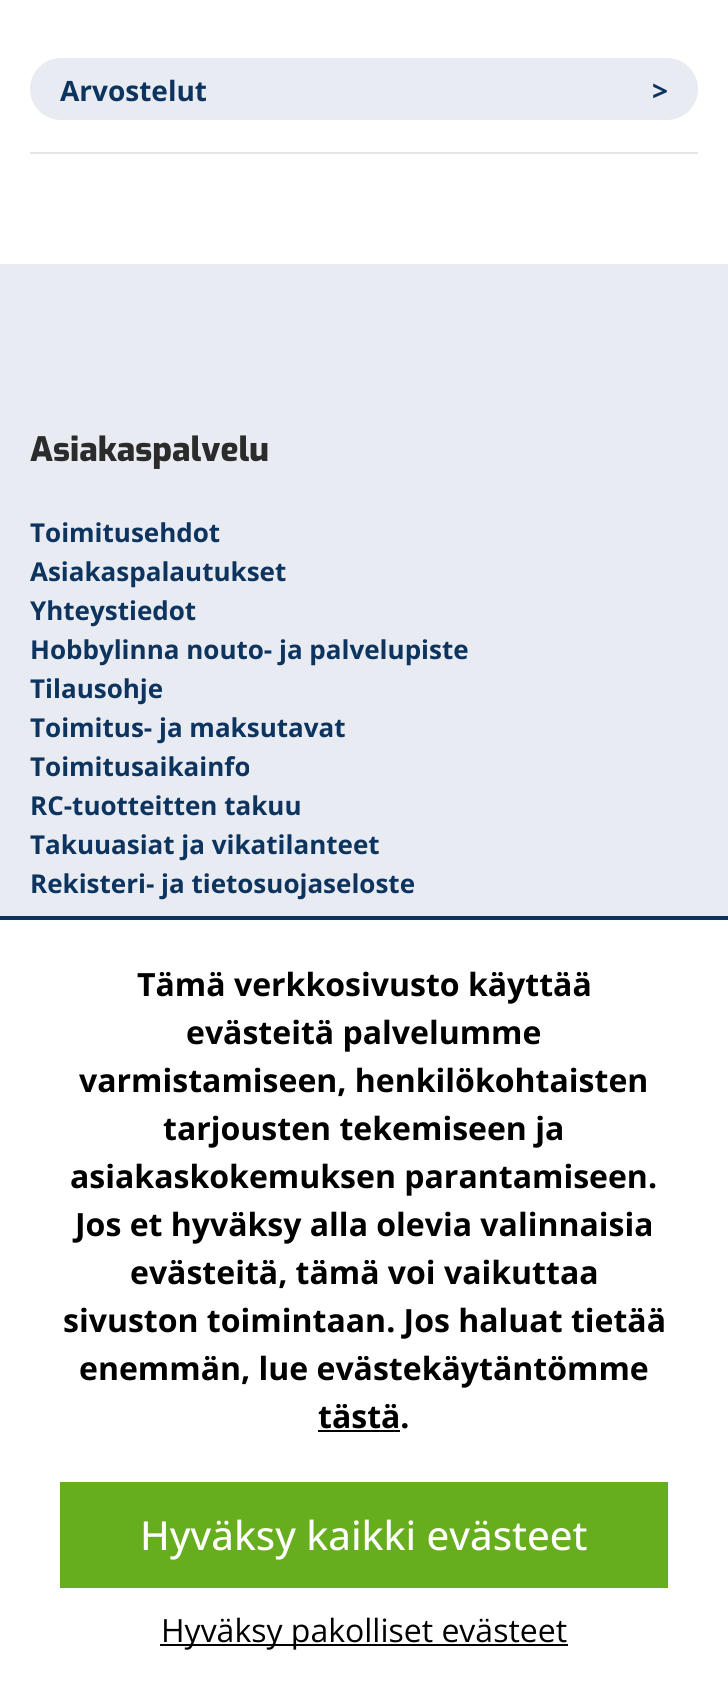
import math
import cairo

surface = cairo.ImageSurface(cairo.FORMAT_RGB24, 728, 1701)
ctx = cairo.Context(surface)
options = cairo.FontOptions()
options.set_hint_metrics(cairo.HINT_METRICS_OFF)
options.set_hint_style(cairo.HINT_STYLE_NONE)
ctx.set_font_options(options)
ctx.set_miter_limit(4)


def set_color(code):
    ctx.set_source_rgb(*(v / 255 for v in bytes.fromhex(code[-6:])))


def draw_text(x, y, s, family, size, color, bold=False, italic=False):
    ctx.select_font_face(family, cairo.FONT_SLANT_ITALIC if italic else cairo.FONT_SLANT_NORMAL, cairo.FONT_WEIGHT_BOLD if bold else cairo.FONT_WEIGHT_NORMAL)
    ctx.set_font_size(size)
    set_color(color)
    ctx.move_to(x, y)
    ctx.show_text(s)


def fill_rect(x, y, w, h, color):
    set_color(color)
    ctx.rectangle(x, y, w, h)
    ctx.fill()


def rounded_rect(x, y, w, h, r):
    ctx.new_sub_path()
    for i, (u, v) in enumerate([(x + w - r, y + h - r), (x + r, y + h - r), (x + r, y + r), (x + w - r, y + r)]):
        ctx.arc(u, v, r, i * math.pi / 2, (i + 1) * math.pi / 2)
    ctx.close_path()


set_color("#ffffff")
ctx.paint()
set_color("#e8ebf1")
rounded_rect(30, 58, 668, 62, 31)
ctx.fill()
draw_text(60, 101, "Arvostelut", "Open Sans", 28, "#0d345f", bold=True)
draw_text(652, 101, ">", "Open Sans", 28, "#0d345f", bold=True)
fill_rect(30, 152, 668, 2, "#e6e6e6")
fill_rect(0, 264, 728, 652, "#e8ebf1")
draw_text(30, 461, "Asiakaspalvelu", "Exo ExtraBold", 33.5, "#2b2b2b")
draw_text(30, 542, "Toimitusehdot", "Open Sans", 26, "#0d345f", bold=True)
draw_text(30, 581, "Asiakaspalautukset", "Open Sans", 26, "#0d345f", bold=True)
draw_text(30, 620, "Yhteystiedot", "Open Sans", 26, "#0d345f", bold=True)
draw_text(30, 659, "Hobbylinna nouto- ja palvelupiste", "Open Sans", 26, "#0d345f", bold=True)
draw_text(30, 698, "Tilausohje", "Open Sans", 26, "#0d345f", bold=True)
draw_text(30, 737, "Toimitus- ja maksutavat", "Open Sans", 26, "#0d345f", bold=True)
draw_text(30, 776, "Toimitusaikainfo", "Open Sans", 26, "#0d345f", bold=True)
draw_text(30, 815, "RC-tuotteitten takuu", "Open Sans", 26, "#0d345f", bold=True)
draw_text(30, 854, "Takuuasiat ja vikatilanteet", "Open Sans", 26, "#0d345f", bold=True)
draw_text(30, 893, "Rekisteri- ja tietosuojaseloste", "Open Sans", 26, "#0d345f", bold=True)
fill_rect(0, 916, 728, 4, "#0d345f")
draw_text(137, 996, "Tämä verkkosivusto käyttää", "Open Sans", 32, "#000000", bold=True)
draw_text(186, 1044, "evästeitä palvelumme", "Open Sans", 32, "#000000", bold=True)
draw_text(79, 1092, "varmistamiseen, henkilökohtaisten", "Open Sans", 32, "#000000", bold=True)
draw_text(163, 1140, "tarjousten tekemiseen ja", "Open Sans", 32, "#000000", bold=True)
draw_text(70, 1188, "asiakaskokemuksen parantamiseen.", "Open Sans", 32, "#000000", bold=True)
draw_text(75, 1236, "Jos et hyväksy alla olevia valinnaisia", "Open Sans", 32, "#000000", bold=True)
draw_text(130, 1284, "evästeitä, tämä voi vaikuttaa", "Open Sans", 32, "#000000", bold=True)
draw_text(63, 1332, "sivuston toimintaan. Jos haluat tietää", "Open Sans", 32, "#000000", bold=True)
draw_text(79, 1380, "enemmän, lue evästekäytäntömme", "Open Sans", 32, "#000000", bold=True)
draw_text(318, 1428, "tästä.", "Open Sans", 32, "#000000", bold=True)
fill_rect(318, 1430, 82, 2, "#000000")
fill_rect(60, 1482, 608, 106, "#67ae1f")
draw_text(140, 1550, "Hyväksy kaikki evästeet", "Open Sans Medium", 40, "#ffffff")
fill_rect(160, 1644, 408, 2, "#000000")
draw_text(161, 1642, "Hyväksy pakolliset evästeet", "Open Sans", 32, "#000000")
surface.write_to_png("output.png")
